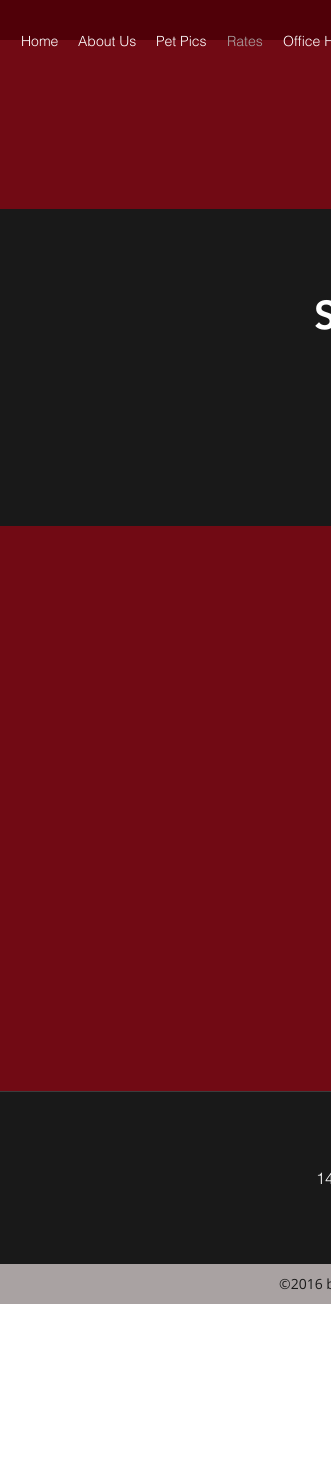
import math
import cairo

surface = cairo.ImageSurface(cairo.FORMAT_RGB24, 331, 1461)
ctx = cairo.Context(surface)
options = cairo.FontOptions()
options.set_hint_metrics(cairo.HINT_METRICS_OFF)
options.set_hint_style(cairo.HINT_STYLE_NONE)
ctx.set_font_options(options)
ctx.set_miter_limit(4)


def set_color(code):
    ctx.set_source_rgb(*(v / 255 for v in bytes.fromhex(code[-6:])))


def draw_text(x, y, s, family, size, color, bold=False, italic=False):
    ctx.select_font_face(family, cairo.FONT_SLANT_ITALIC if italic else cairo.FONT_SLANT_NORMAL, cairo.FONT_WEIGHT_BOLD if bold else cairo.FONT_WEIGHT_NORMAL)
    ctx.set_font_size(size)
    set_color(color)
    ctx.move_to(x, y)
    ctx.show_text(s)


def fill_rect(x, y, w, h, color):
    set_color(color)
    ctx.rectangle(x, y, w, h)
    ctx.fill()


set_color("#ffffff")
ctx.paint()
fill_rect(0, 0, 331, 40, "#500008")
fill_rect(0, 40, 331, 169, "#710a14")
draw_text(21, 46, "Home", "helvetica Light", 14, "#ffffff")
draw_text(78, 46, "About Us", "helvetica Light", 14, "#ffffff")
draw_text(156, 46, "Pet Pics", "helvetica Light", 14, "#ffffff")
draw_text(227, 46, "Rates", "helvetica Light", 14, "#a9a2a2")
draw_text(283, 46, "Office H", "helvetica Light", 14, "#ffffff")
fill_rect(0, 209, 331, 317, "#191919")
draw_text(314, 329, "S", "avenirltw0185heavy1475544 Black", 40, "#ffffff")
fill_rect(0, 526, 331, 565, "#710a14")
fill_rect(0, 1092, 331, 172, "#191919")
fill_rect(0, 1091, 331, 1, "#3c3c3c")
draw_text(316, 1184, "14", "helvetica Light", 16, "#ffffff")
fill_rect(0, 1264, 331, 40, "#a9a2a2")
draw_text(279, 1289, "©2016 b", "Open Sans", 14, "#191919")
surface.write_to_png("output.png")
